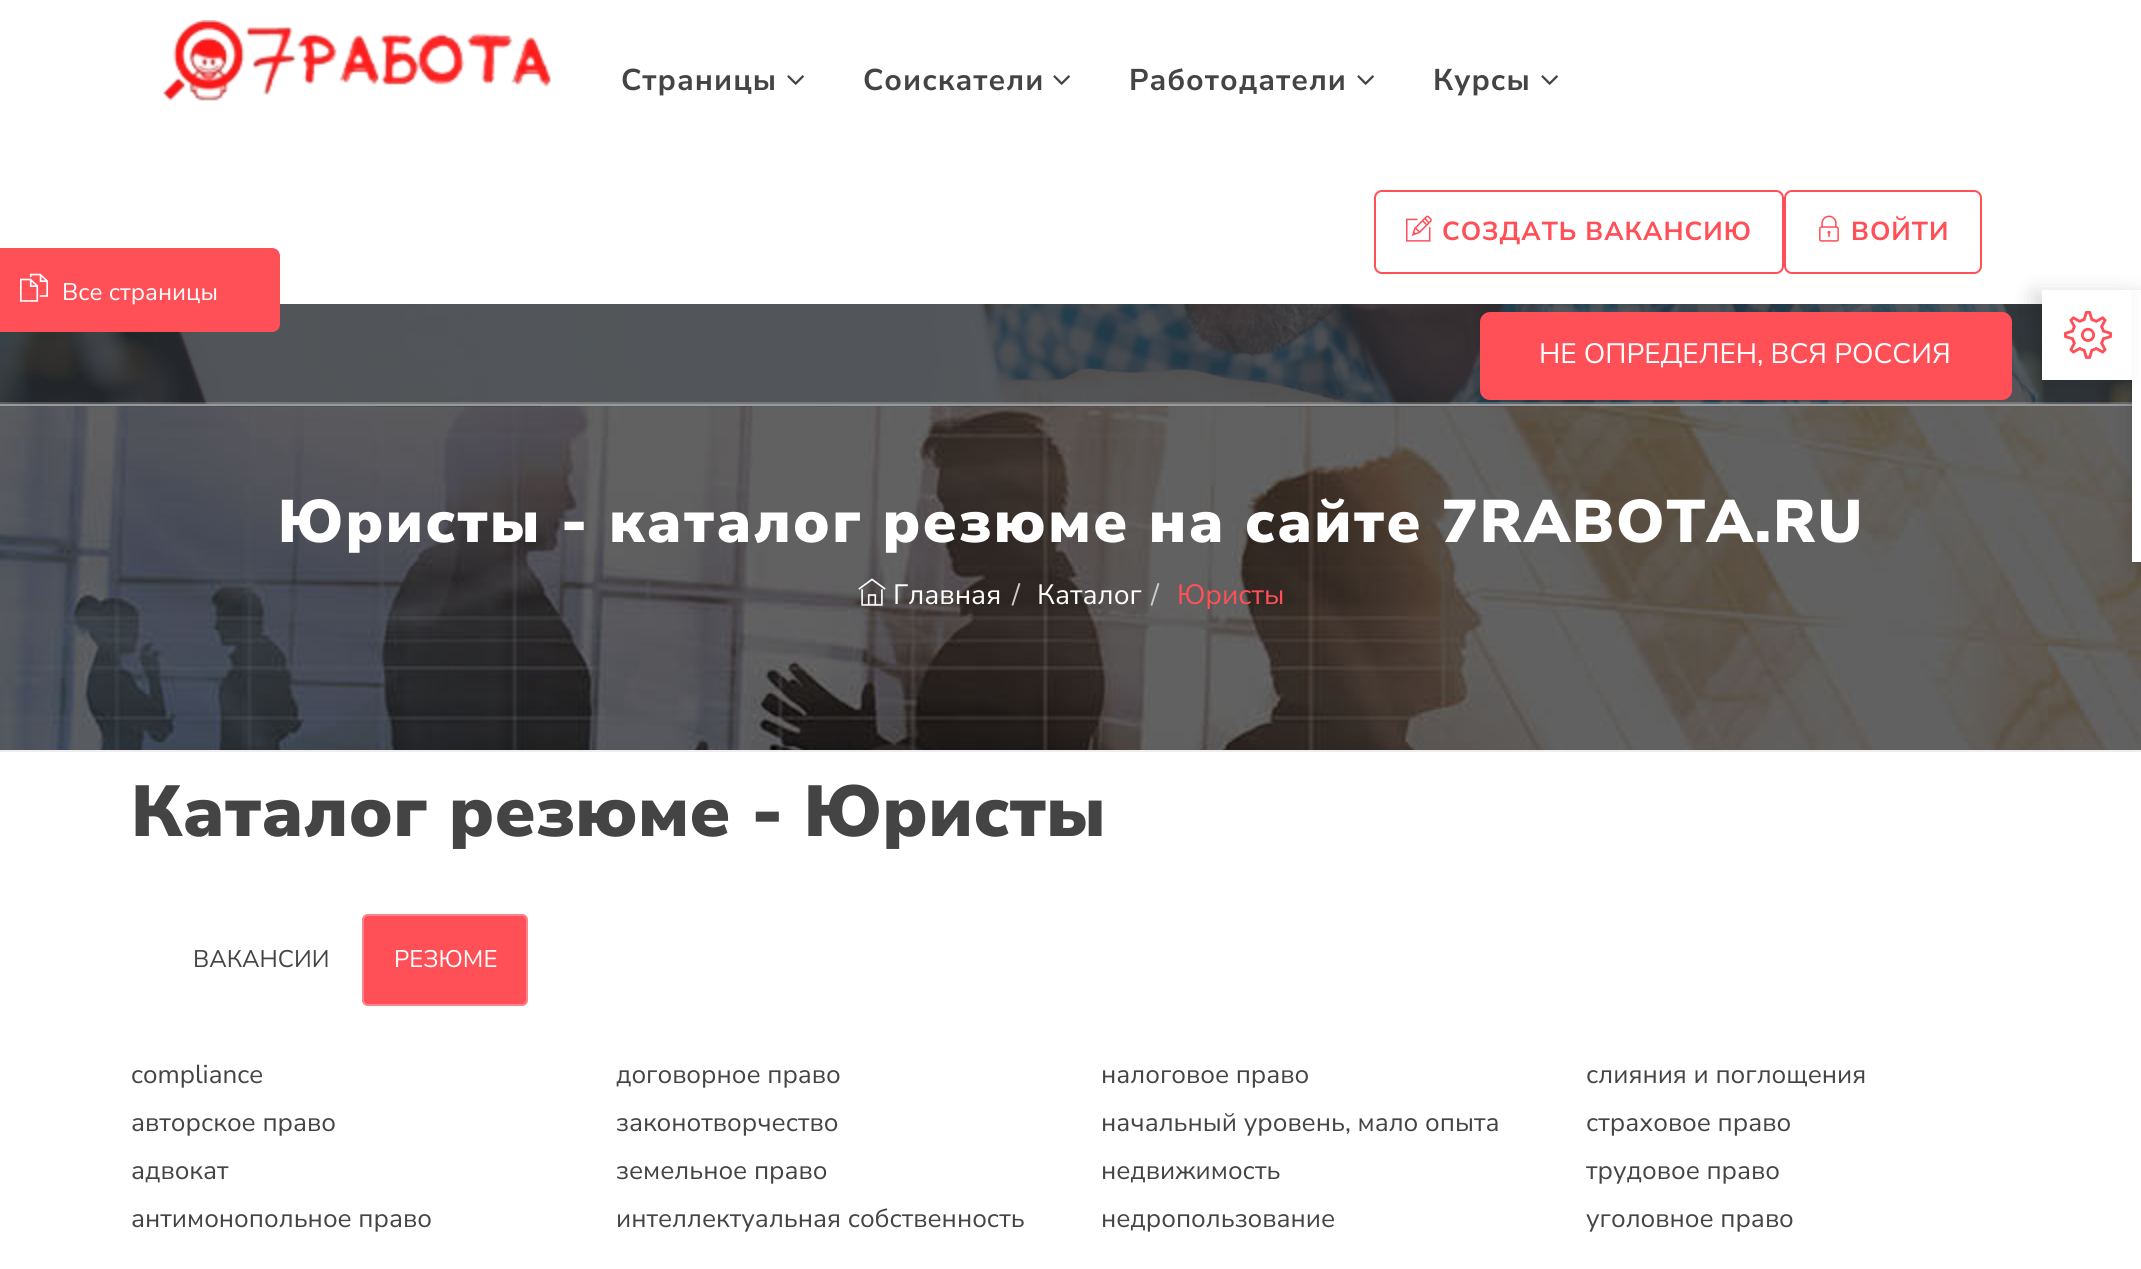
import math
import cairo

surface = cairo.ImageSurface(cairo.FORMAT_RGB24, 2141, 1269)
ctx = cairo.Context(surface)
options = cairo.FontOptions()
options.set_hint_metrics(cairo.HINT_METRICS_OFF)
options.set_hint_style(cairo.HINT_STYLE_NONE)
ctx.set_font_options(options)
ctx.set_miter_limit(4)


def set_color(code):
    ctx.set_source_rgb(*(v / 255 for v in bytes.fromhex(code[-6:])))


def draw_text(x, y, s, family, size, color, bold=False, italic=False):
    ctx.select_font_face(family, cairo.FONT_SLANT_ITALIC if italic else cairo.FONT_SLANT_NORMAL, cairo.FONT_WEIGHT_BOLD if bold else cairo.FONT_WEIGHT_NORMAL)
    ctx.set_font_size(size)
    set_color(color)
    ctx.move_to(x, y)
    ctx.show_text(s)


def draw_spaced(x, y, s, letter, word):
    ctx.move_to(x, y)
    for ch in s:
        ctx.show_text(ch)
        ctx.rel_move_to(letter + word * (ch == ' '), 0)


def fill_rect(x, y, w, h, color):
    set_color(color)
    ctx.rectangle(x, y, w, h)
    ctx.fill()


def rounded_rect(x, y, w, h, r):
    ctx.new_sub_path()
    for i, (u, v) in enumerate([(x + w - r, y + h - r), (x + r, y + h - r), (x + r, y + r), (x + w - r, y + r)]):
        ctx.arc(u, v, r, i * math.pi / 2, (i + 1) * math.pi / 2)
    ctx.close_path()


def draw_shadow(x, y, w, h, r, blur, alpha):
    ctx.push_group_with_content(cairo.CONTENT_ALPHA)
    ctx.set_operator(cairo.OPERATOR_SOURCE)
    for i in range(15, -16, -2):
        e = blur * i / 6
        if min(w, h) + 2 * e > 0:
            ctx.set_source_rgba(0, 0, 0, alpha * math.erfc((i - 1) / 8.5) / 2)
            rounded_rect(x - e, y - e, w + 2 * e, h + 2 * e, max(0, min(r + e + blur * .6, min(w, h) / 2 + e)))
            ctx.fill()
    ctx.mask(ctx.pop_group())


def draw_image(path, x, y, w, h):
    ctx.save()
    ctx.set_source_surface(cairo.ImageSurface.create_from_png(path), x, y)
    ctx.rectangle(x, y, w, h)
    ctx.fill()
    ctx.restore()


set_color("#ffffff")
ctx.paint()
draw_image("assets/img1.png", 0, 304, 2132, 100)
draw_image("assets/img2.png", 163, 20, 389, 81)
ctx.select_font_face("Nunito Sans", cairo.FONT_SLANT_NORMAL, cairo.FONT_WEIGHT_BOLD)
ctx.set_font_size(30)
set_color("#444444")
draw_spaced(621, 90, "Страницы", 1, 0)
draw_image("assets/img3.png", 787, 75, 17, 10)
draw_spaced(863, 90, "Соискатели", 1, 0)
draw_image("assets/img3.png", 1053, 75, 17, 10)
draw_spaced(1129, 90, "Работодатели", 1, 0)
draw_image("assets/img3.png", 1357, 75, 17, 10)
draw_spaced(1433, 90, "Курсы", 1, 0)
draw_image("assets/img3.png", 1541, 75, 17, 10)
rounded_rect(1375, 191, 408, 82, 7)
set_color("#ff4f57")
ctx.stroke()
draw_image("assets/img4.png", 1406, 215, 26, 27)
ctx.set_font_size(26)
draw_spaced(1442, 240, "СОЗДАТЬ ВАКАНСИЮ", 1, 0)
rounded_rect(1785, 191, 196, 82, 7)
ctx.stroke()
draw_image("assets/img5.png", 1819, 215, 20, 27)
draw_spaced(1851, 240, "ВОЙТИ", 1, 0)
ctx.new_path()
ctx.move_to(0, 248)
ctx.line_to(272, 248)
ctx.curve_to(276.5, 248, 280, 251.5, 280, 256)
ctx.line_to(280, 324)
ctx.curve_to(280, 328.5, 276.5, 332, 272, 332)
ctx.line_to(0, 332)
ctx.close_path()
ctx.fill()
draw_image("assets/img6.png", 20, 273, 28, 29)
draw_text(62, 300, "Все страницы", "Nunito Sans", 24, "#ffffff")
ctx.set_source_rgba(1, 1, 1, 0.2)
ctx.rectangle(0, 402, 2132, 2)
ctx.fill()
set_color("#ff4f57")
rounded_rect(1480, 312, 532, 88, 10)
ctx.fill()
draw_text(1539, 363, "НЕ ОПРЕДЕЛЕН, ВСЯ РОССИЯ", "Nunito Sans", 28, "#ffffff")
draw_image("assets/img7.png", 0, 406, 2141, 344)
fill_rect(0, 404, 2132, 2, "#999999")
fill_rect(0, 750, 2141, 2, "#eeeeee")
ctx.select_font_face("Nunito Sans Black")
ctx.set_font_size(60)
set_color("#ffffff")
draw_spaced(278, 542, "Юристы - каталог резюме на сайте 7RABOTA.RU", 2, 0)
draw_image("assets/img8.png", 858, 578, 28, 28)
draw_text(893, 604, "Главная", "Nunito Sans", 28, "#ffffff")
draw_text(1012, 604, "/", "Nunito Sans", 28, "#cccccc")
draw_text(1037, 604, "Каталог", "Nunito Sans", 28, "#ffffff")
draw_text(1151, 604, "/", "Nunito Sans", 28, "#cccccc")
draw_text(1177, 604, "Юристы", "Nunito Sans", 28, "#ff4f57")
set_color("#000000")
draw_shadow(2132, 294, 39, 272, 0, 10, 0.14)
fill_rect(2132, 290, 9, 272, "#ffffff")
set_color("#000000")
draw_shadow(2032, 292, 90, 90, 0, 10, 0.14)
fill_rect(2042, 290, 90, 90, "#ffffff")
draw_image("assets/img9.png", 2064, 310, 48, 49)
draw_text(131, 836, "Каталог резюме - Юристы", "Nunito Sans Black", 72, "#444444")
draw_text(193, 967, "ВАКАНСИИ", "Nunito Sans", 24, "#444444")
set_color("#ff4f57")
rounded_rect(362, 914, 166, 92, 6)
ctx.fill()
rounded_rect(363, 915, 164, 90, 5)
ctx.set_source_rgba(1, 1, 1, 0.3)
ctx.stroke()
draw_text(394, 967, "РЕЗЮМЕ", "Nunito Sans", 24, "#ffffff")
draw_text(131, 1083, "compliance", "Nunito Sans", 26, "#444444")
draw_text(131, 1131, "авторское право", "Nunito Sans", 26, "#444444")
draw_text(131, 1179, "адвокат", "Nunito Sans", 26, "#444444")
draw_text(131, 1227, "антимонопольное право", "Nunito Sans", 26, "#444444")
draw_text(616, 1083, "договорное право", "Nunito Sans", 26, "#444444")
draw_text(616, 1131, "законотворчество", "Nunito Sans", 26, "#444444")
draw_text(616, 1179, "земельное право", "Nunito Sans", 26, "#444444")
draw_text(616, 1227, "интеллектуальная собственность", "Nunito Sans", 26, "#444444")
draw_text(1101, 1083, "налоговое право", "Nunito Sans", 26, "#444444")
draw_text(1101, 1131, "начальный уровень, мало опыта", "Nunito Sans", 26, "#444444")
draw_text(1101, 1179, "недвижимость", "Nunito Sans", 26, "#444444")
draw_text(1101, 1227, "недропользование", "Nunito Sans", 26, "#444444")
draw_text(1586, 1083, "слияния и поглощения", "Nunito Sans", 26, "#444444")
draw_text(1586, 1131, "страховое право", "Nunito Sans", 26, "#444444")
draw_text(1586, 1179, "трудовое право", "Nunito Sans", 26, "#444444")
draw_text(1586, 1227, "уголовное право", "Nunito Sans", 26, "#444444")
surface.write_to_png("output.png")
